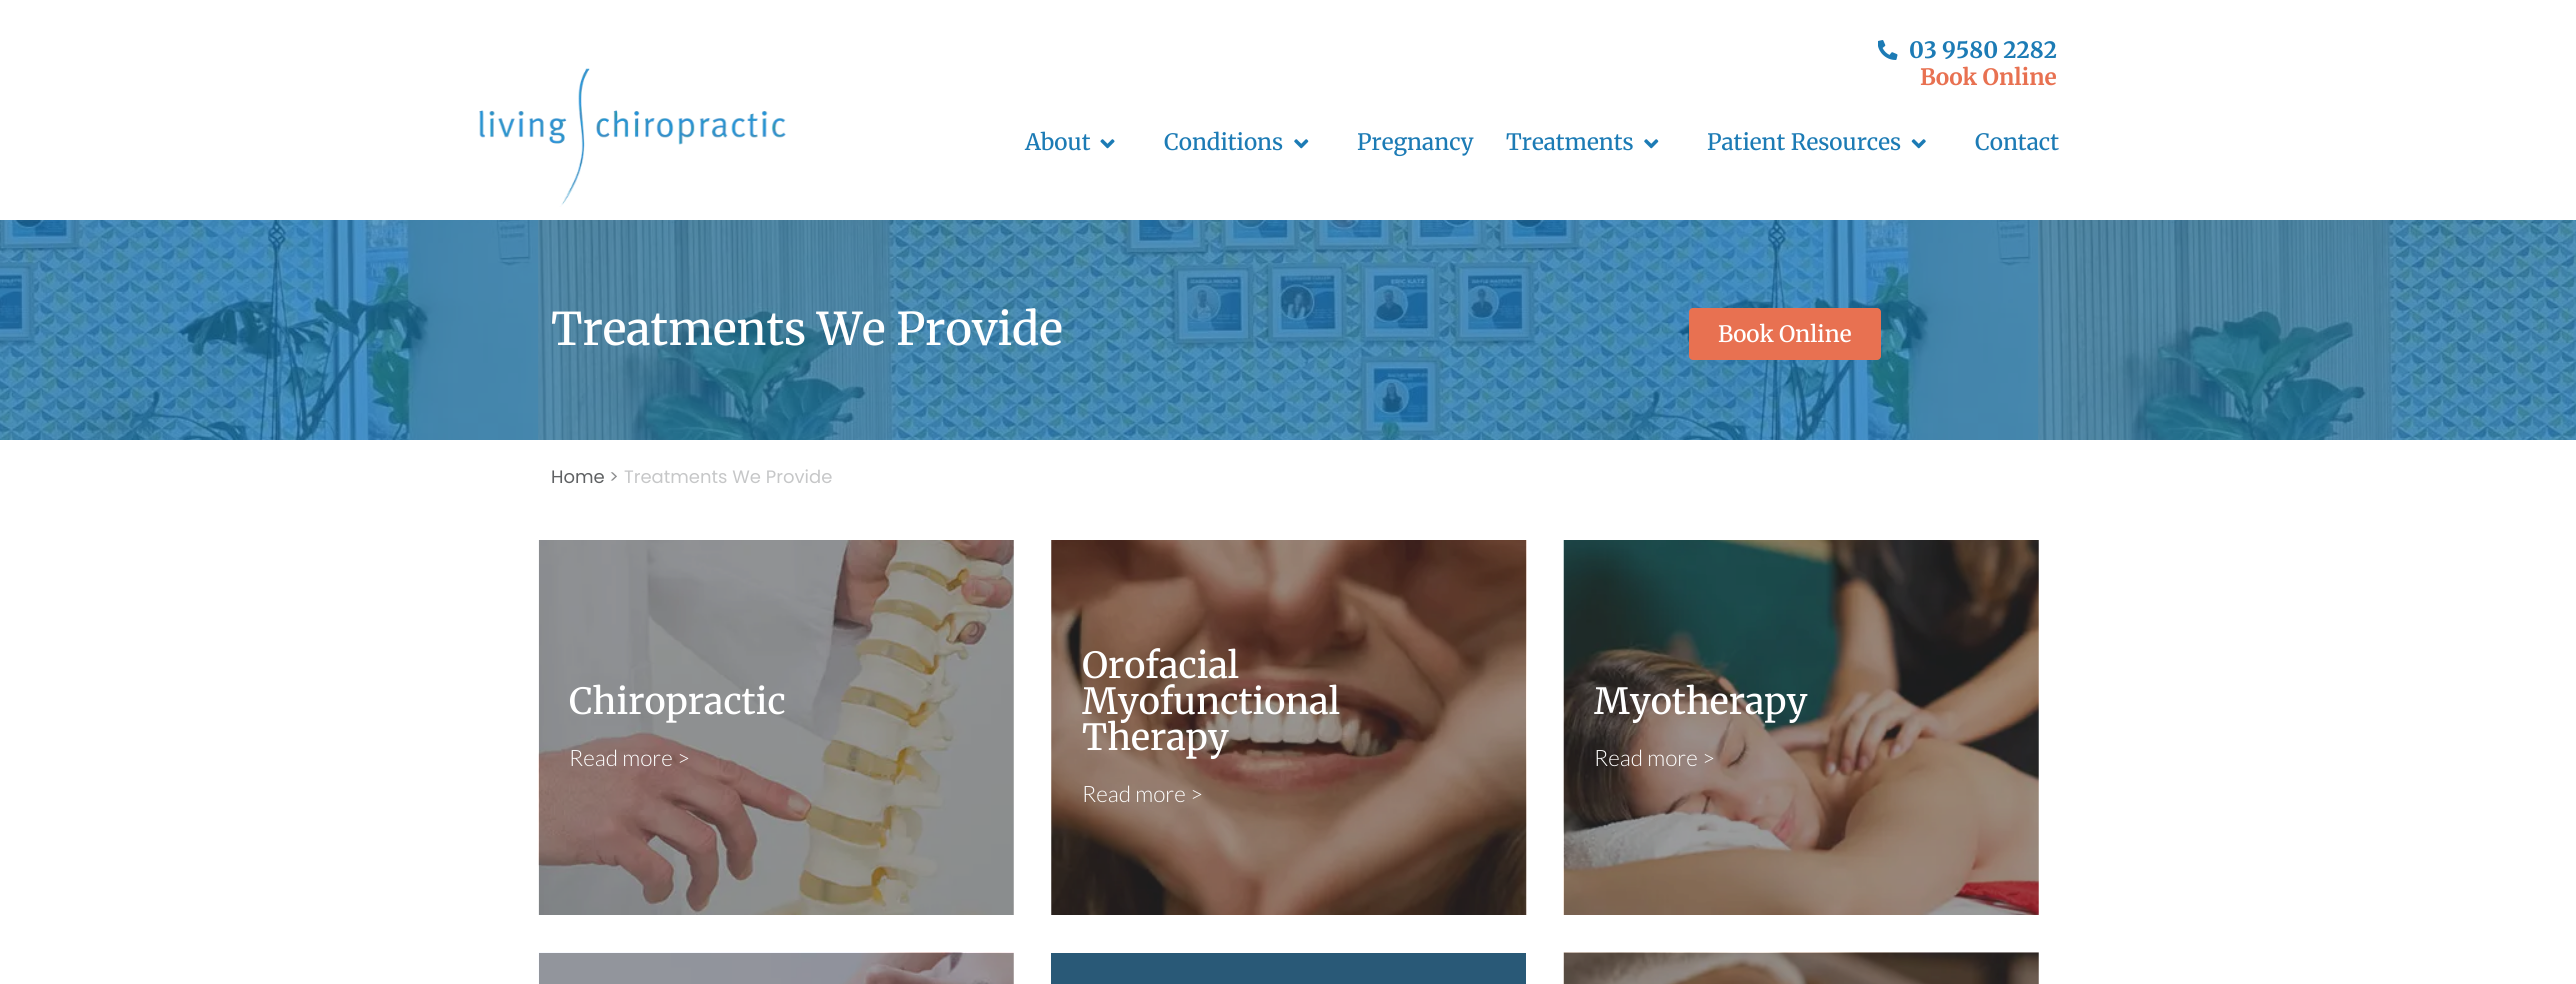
import math
import cairo

surface = cairo.ImageSurface(cairo.FORMAT_RGB24, 2576, 984)
ctx = cairo.Context(surface)
options = cairo.FontOptions()
options.set_hint_metrics(cairo.HINT_METRICS_OFF)
options.set_hint_style(cairo.HINT_STYLE_NONE)
ctx.set_font_options(options)
ctx.set_miter_limit(4)


def set_color(code):
    ctx.set_source_rgb(*(v / 255 for v in bytes.fromhex(code[-6:])))


def draw_text(x, y, s, family, size, color, bold=False, italic=False):
    ctx.select_font_face(family, cairo.FONT_SLANT_ITALIC if italic else cairo.FONT_SLANT_NORMAL, cairo.FONT_WEIGHT_BOLD if bold else cairo.FONT_WEIGHT_NORMAL)
    ctx.set_font_size(size)
    set_color(color)
    ctx.move_to(x, y)
    ctx.show_text(s)


def fill_rect(x, y, w, h, color):
    set_color(color)
    ctx.rectangle(x, y, w, h)
    ctx.fill()


def rounded_rect(x, y, w, h, r):
    ctx.new_sub_path()
    for i, (u, v) in enumerate([(x + w - r, y + h - r), (x + r, y + h - r), (x + r, y + r), (x + w - r, y + r)]):
        ctx.arc(u, v, r, i * math.pi / 2, (i + 1) * math.pi / 2)
    ctx.close_path()


def draw_image(path, x, y, w, h):
    ctx.save()
    ctx.set_source_surface(cairo.ImageSurface.create_from_png(path), x, y)
    ctx.rectangle(x, y, w, h)
    ctx.fill()
    ctx.restore()


set_color("#ffffff")
ctx.paint()
draw_image("assets/img1.png", 479, 68, 307, 139)
draw_image("assets/img2.png", 1878, 40, 20, 20)
draw_text(1909, 58, "03 9580 2282", "Merriweather", 22.5, "#1c7bb5", bold=True)
draw_text(1920, 85, "Book Online", "Merriweather", 22.5, "#e87151", bold=True)
draw_text(1025, 150, "About", "Merriweather Medium", 22.5, "#1c7bb5")
draw_image("assets/img3.png", 1100, 139, 15, 10)
draw_text(1164, 150, "Conditions", "Merriweather Medium", 22.5, "#1c7bb5")
draw_image("assets/img4.png", 1294, 139, 15, 10)
draw_text(1357, 150, "Pregnancy", "Merriweather Medium", 22.5, "#1c7bb5")
draw_text(1506, 150, "Treatments", "Merriweather Medium", 22.5, "#1c7bb5")
draw_image("assets/img4.png", 1644, 139, 15, 10)
draw_text(1707, 150, "Patient Resources", "Merriweather Medium", 22.5, "#1c7bb5")
draw_image("assets/img5.png", 1911, 139, 15, 10)
draw_text(1975, 150, "Contact", "Merriweather Medium", 22.5, "#1c7bb5")
draw_image("assets/img6.png", 0, 220, 2576, 220)
draw_text(551, 345, "Treatments We Provide", "Merriweather Medium", 45, "#ffffff")
set_color("#e87151")
rounded_rect(1689, 308, 192, 52, 4)
ctx.fill()
draw_text(1718, 342, "Book Online", "Merriweather Medium", 22.5, "#ffffff")
draw_text(551, 483, "Home", "Poppins", 18, "#5f6163")
draw_text(609, 483, ">", "Poppins", 18, "#8e8f90")
draw_text(624, 483, "Treatments We Provide", "Poppins", 18, "#c6c7c8")
draw_image("assets/img7.png", 538, 540, 476, 375)
draw_text(569, 714, "Chiropractic", "Merriweather Medium", 36, "#ffffff")
draw_text(569, 766, "Read more >", "Lato Light", 22.5, "#ffffff")
draw_image("assets/img8.png", 1051, 540, 476, 375)
draw_text(1082, 678, "Orofacial", "Merriweather Medium", 36, "#ffffff")
draw_text(1082, 714, "Myofunctional", "Merriweather Medium", 36, "#ffffff")
draw_text(1082, 750, "Therapy", "Merriweather Medium", 36, "#ffffff")
draw_text(1082, 802, "Read more >", "Lato Light", 22.5, "#ffffff")
draw_image("assets/img9.png", 1563, 540, 476, 375)
draw_text(1594, 714, "Myotherapy", "Merriweather Medium", 36, "#ffffff")
draw_text(1594, 766, "Read more >", "Lato Light", 22.5, "#ffffff")
draw_image("assets/img10.png", 538, 952, 476, 32)
fill_rect(1051, 953, 475, 31, "#295977")
draw_image("assets/img11.png", 1563, 952, 476, 32)
surface.write_to_png("output.png")
